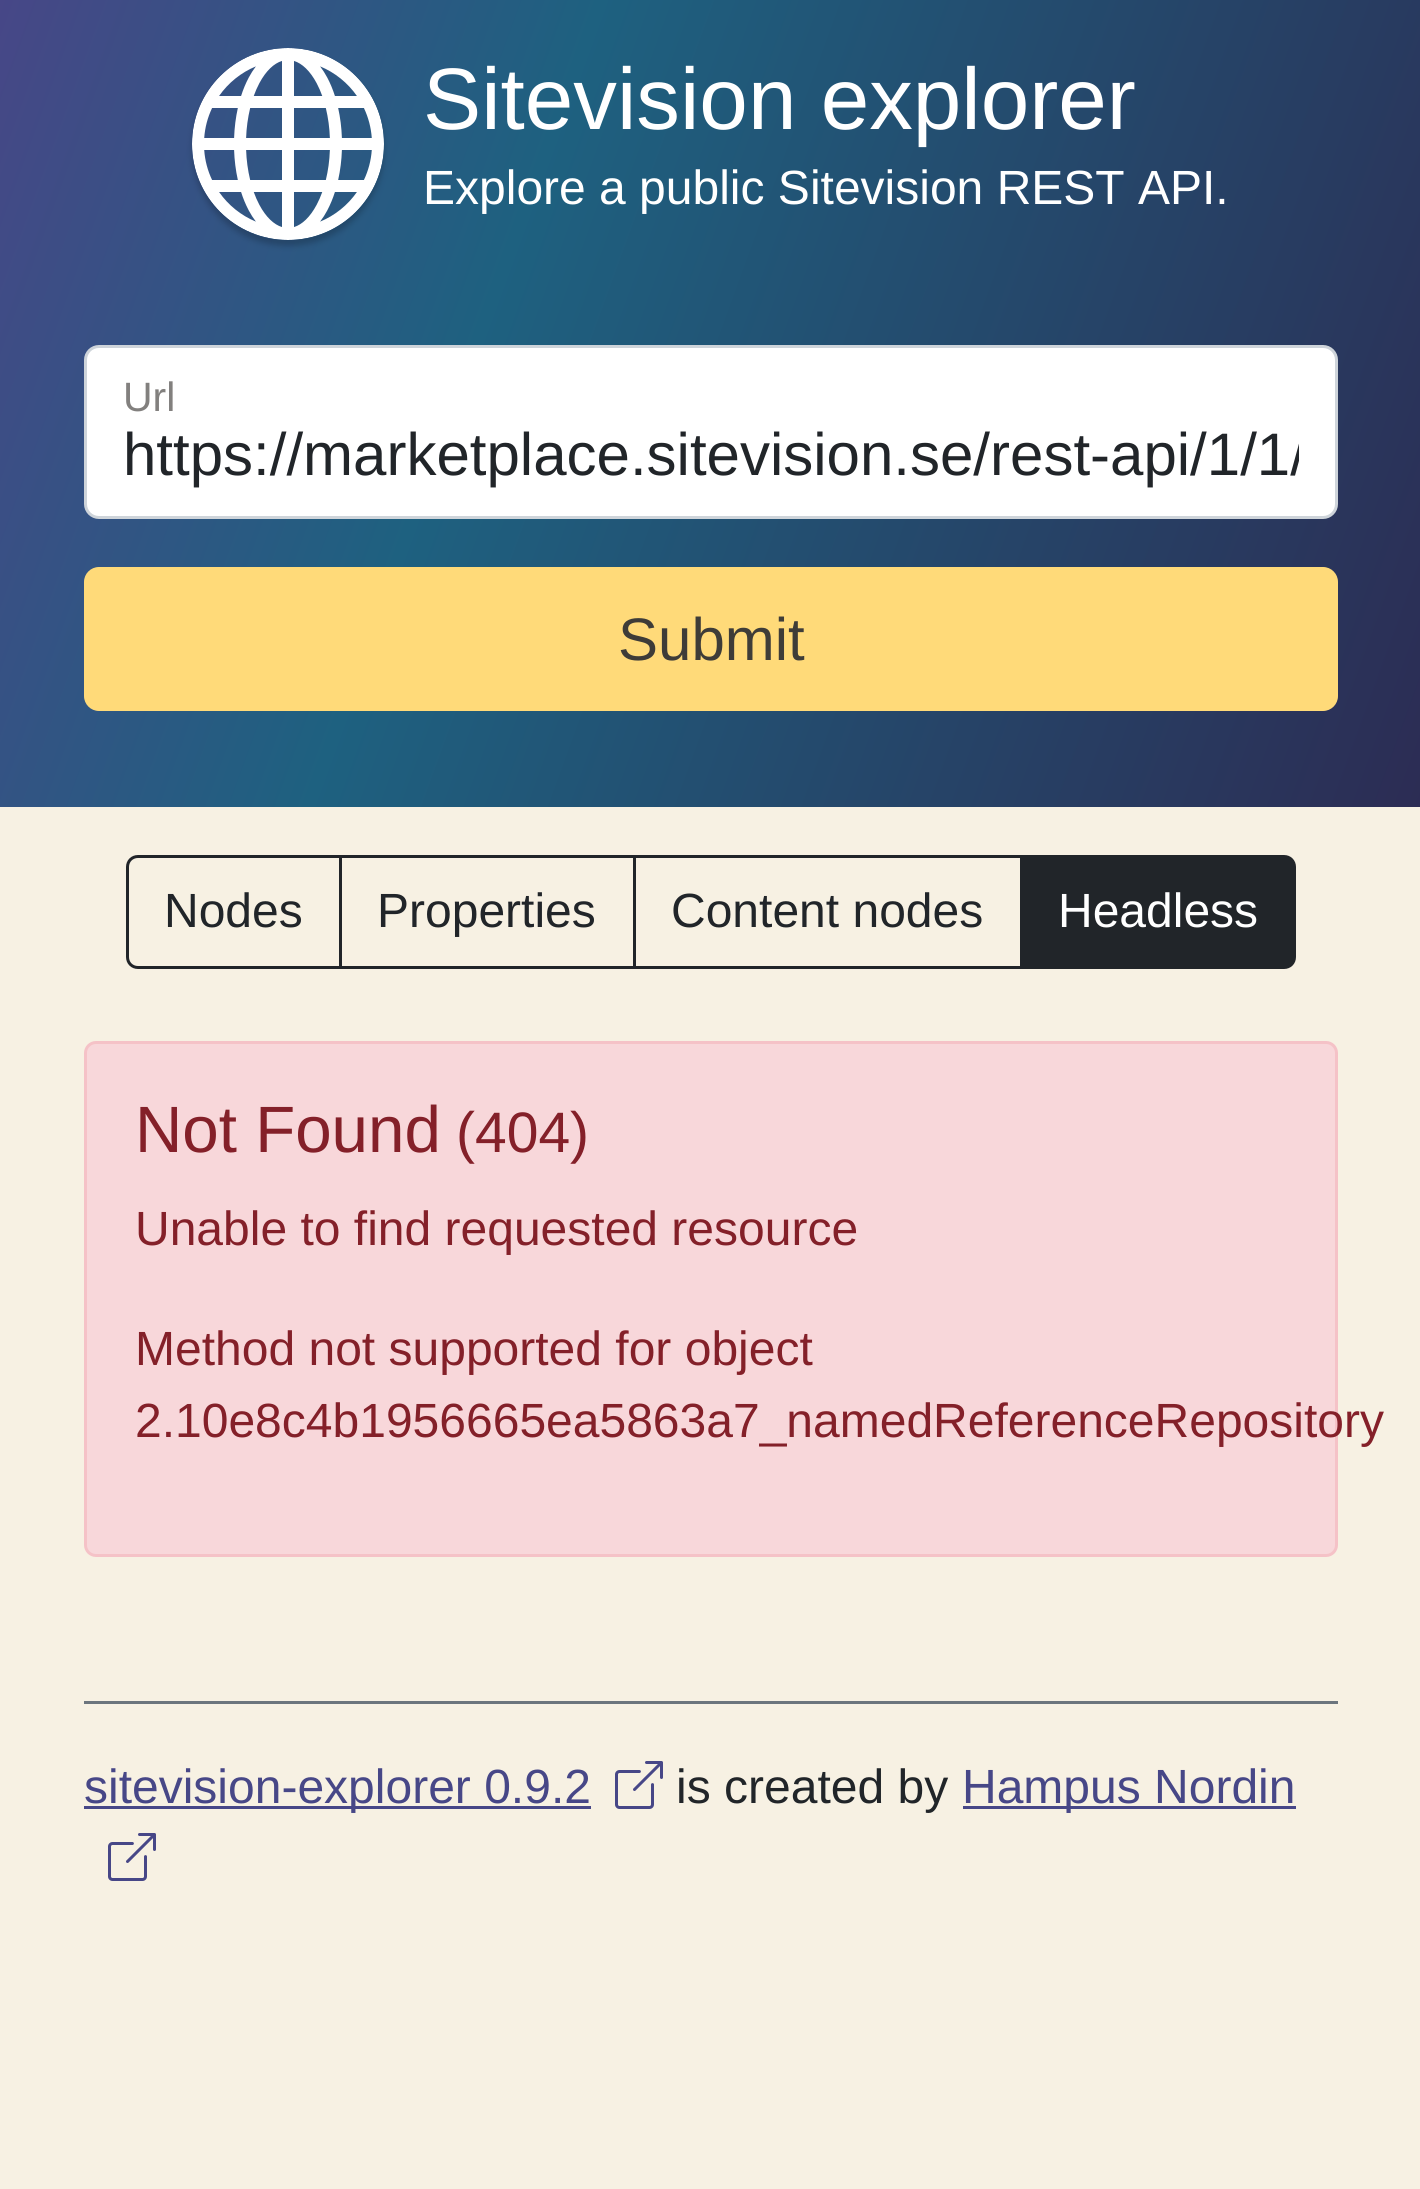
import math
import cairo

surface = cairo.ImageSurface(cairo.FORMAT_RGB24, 1420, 2189)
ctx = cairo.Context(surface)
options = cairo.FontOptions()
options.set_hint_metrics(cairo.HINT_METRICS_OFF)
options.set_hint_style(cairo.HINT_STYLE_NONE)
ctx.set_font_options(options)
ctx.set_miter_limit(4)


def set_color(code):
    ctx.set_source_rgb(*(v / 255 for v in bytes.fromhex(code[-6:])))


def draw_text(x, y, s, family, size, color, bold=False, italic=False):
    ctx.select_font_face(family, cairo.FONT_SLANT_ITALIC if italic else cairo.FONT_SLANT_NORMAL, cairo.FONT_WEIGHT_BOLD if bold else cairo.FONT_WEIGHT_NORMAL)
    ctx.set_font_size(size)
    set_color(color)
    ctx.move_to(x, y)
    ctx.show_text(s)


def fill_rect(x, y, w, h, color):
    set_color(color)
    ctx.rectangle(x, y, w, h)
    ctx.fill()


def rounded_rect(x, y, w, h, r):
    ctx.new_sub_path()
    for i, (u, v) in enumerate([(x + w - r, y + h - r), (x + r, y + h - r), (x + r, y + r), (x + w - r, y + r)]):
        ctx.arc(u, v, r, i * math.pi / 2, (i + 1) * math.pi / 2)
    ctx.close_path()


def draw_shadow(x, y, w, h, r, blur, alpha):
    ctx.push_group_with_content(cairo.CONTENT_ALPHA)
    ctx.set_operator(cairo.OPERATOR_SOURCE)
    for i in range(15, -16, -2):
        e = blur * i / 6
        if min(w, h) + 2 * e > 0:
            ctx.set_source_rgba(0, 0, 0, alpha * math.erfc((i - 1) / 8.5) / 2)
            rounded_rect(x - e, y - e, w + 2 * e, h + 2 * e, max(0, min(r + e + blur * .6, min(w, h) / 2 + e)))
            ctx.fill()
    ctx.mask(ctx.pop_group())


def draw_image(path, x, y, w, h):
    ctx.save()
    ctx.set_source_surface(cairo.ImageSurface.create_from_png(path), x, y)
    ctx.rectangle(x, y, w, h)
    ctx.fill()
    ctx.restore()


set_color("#f7f1e3")
ctx.paint()
gradient = cairo.LinearGradient(-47, 128, 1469, 679)
gradient.add_color_stop_rgba(0, 0.278, 0.278, 0.529, 1)
gradient.add_color_stop_rgba(0.35, 0.118, 0.38, 0.502, 1)
gradient.add_color_stop_rgba(1, 0.173, 0.173, 0.329, 1)
ctx.set_source(gradient)
ctx.rectangle(0, 0, 1420, 807)
ctx.fill()
ctx.save()
ctx.set_fill_rule(cairo.FILL_RULE_EVEN_ODD)
ctx.new_path()
ctx.move_to(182, 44)
ctx.line_to(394, 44)
ctx.line_to(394, 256)
ctx.line_to(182, 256)
ctx.close_path()
ctx.move_to(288, 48)
ctx.curve_to(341, 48, 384, 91, 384, 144)
ctx.curve_to(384, 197, 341, 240, 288, 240)
ctx.curve_to(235, 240, 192, 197, 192, 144)
ctx.curve_to(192, 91, 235, 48, 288, 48)
ctx.close_path()
ctx.clip()
set_color("#000000")
draw_shadow(192, 54, 192, 192, 96, 3, 0.2)
ctx.restore()
draw_image("assets/img1.png", 192, 48, 192, 192)
draw_text(423, 129, "Sitevision explorer", "Liberation Sans", 87.25, "#ffffff")
draw_text(423, 204, "Explore a public Sitevision REST API.", "Liberation Sans", 48, "#ffffff")
rounded_rect(85.5, 346.5, 1251, 171, 13.5)
ctx.fill_preserve()
set_color("#ced4da")
ctx.set_line_width(3)
ctx.stroke()
draw_text(123, 411, "Url", "Liberation Sans", 41, "#82807e")
ctx.save()
ctx.rectangle(123, 420, 1176, 69)
ctx.clip()
draw_text(123, 475, "https://marketplace.sitevision.se/rest-api/1/1/", "Liberation Sans", 60, "#212529")
ctx.restore()
set_color("#ffda79")
rounded_rect(84, 567, 1254, 144, 15)
ctx.fill()
draw_text(618, 660, "Submit", "Liberation Sans", 60, "#3e3c38")
ctx.new_path()
ctx.move_to(138, 856.5)
ctx.line_to(340.5, 856.5)
ctx.line_to(340.5, 967.5)
ctx.line_to(138, 967.5)
ctx.curve_to(132, 967.5, 127.5, 963, 127.5, 957)
ctx.line_to(127.5, 867)
ctx.curve_to(127.5, 861, 132, 856.5, 138, 856.5)
ctx.close_path()
set_color("#212529")
ctx.stroke()
draw_text(164, 927, "Nodes", "Liberation Sans", 48, "#212529")
ctx.rectangle(340.5, 856.5, 294, 111)
ctx.stroke()
draw_text(377, 927, "Properties", "Liberation Sans", 48, "#212529")
ctx.rectangle(634.5, 856.5, 387, 111)
ctx.stroke()
draw_text(671, 927, "Content nodes", "Liberation Sans", 48, "#212529")
ctx.new_path()
ctx.move_to(1021.5, 856.5)
ctx.line_to(1284, 856.5)
ctx.curve_to(1290, 856.5, 1294.5, 861, 1294.5, 867)
ctx.line_to(1294.5, 957)
ctx.curve_to(1294.5, 963, 1290, 967.5, 1284, 967.5)
ctx.line_to(1021.5, 967.5)
ctx.close_path()
ctx.fill_preserve()
ctx.stroke()
draw_text(1058, 927, "Headless", "Liberation Sans", 48, "#ffffff")
set_color("#f8d7da")
rounded_rect(85.5, 1042.5, 1251, 513, 10.5)
ctx.fill_preserve()
set_color("#f5c2c7")
ctx.stroke()
draw_text(135, 1152, "Not Found", "Liberation Sans", 65.5, "#842029")
draw_text(456, 1152, "(404)", "Liberation Sans", 57, "#842029")
draw_text(135, 1245, "Unable to find requested resource", "Liberation Sans", 48, "#842029")
draw_text(135, 1365, "Method not supported for object", "Liberation Sans", 48, "#842029")
draw_text(135, 1437, "2.10e8c4b1956665ea5863a7_namedReferenceRepository", "Liberation Sans", 48, "#842029")
fill_rect(84, 1701, 1254, 3, "#6c757d")
fill_rect(84, 1806, 507, 3, "#474787")
draw_text(84, 1803, "sitevision-explorer 0.9.2", "Liberation Sans", 48, "#474787")
draw_image("assets/img2.png", 615, 1761, 48, 48)
draw_text(676, 1803, "is created by", "Liberation Sans", 48, "#212529")
fill_rect(963, 1806, 333, 3, "#474787")
draw_text(962, 1803, "Hampus Nordin", "Liberation Sans", 48, "#474787")
draw_image("assets/img2.png", 108, 1833, 48, 48)
surface.write_to_png("output.png")
